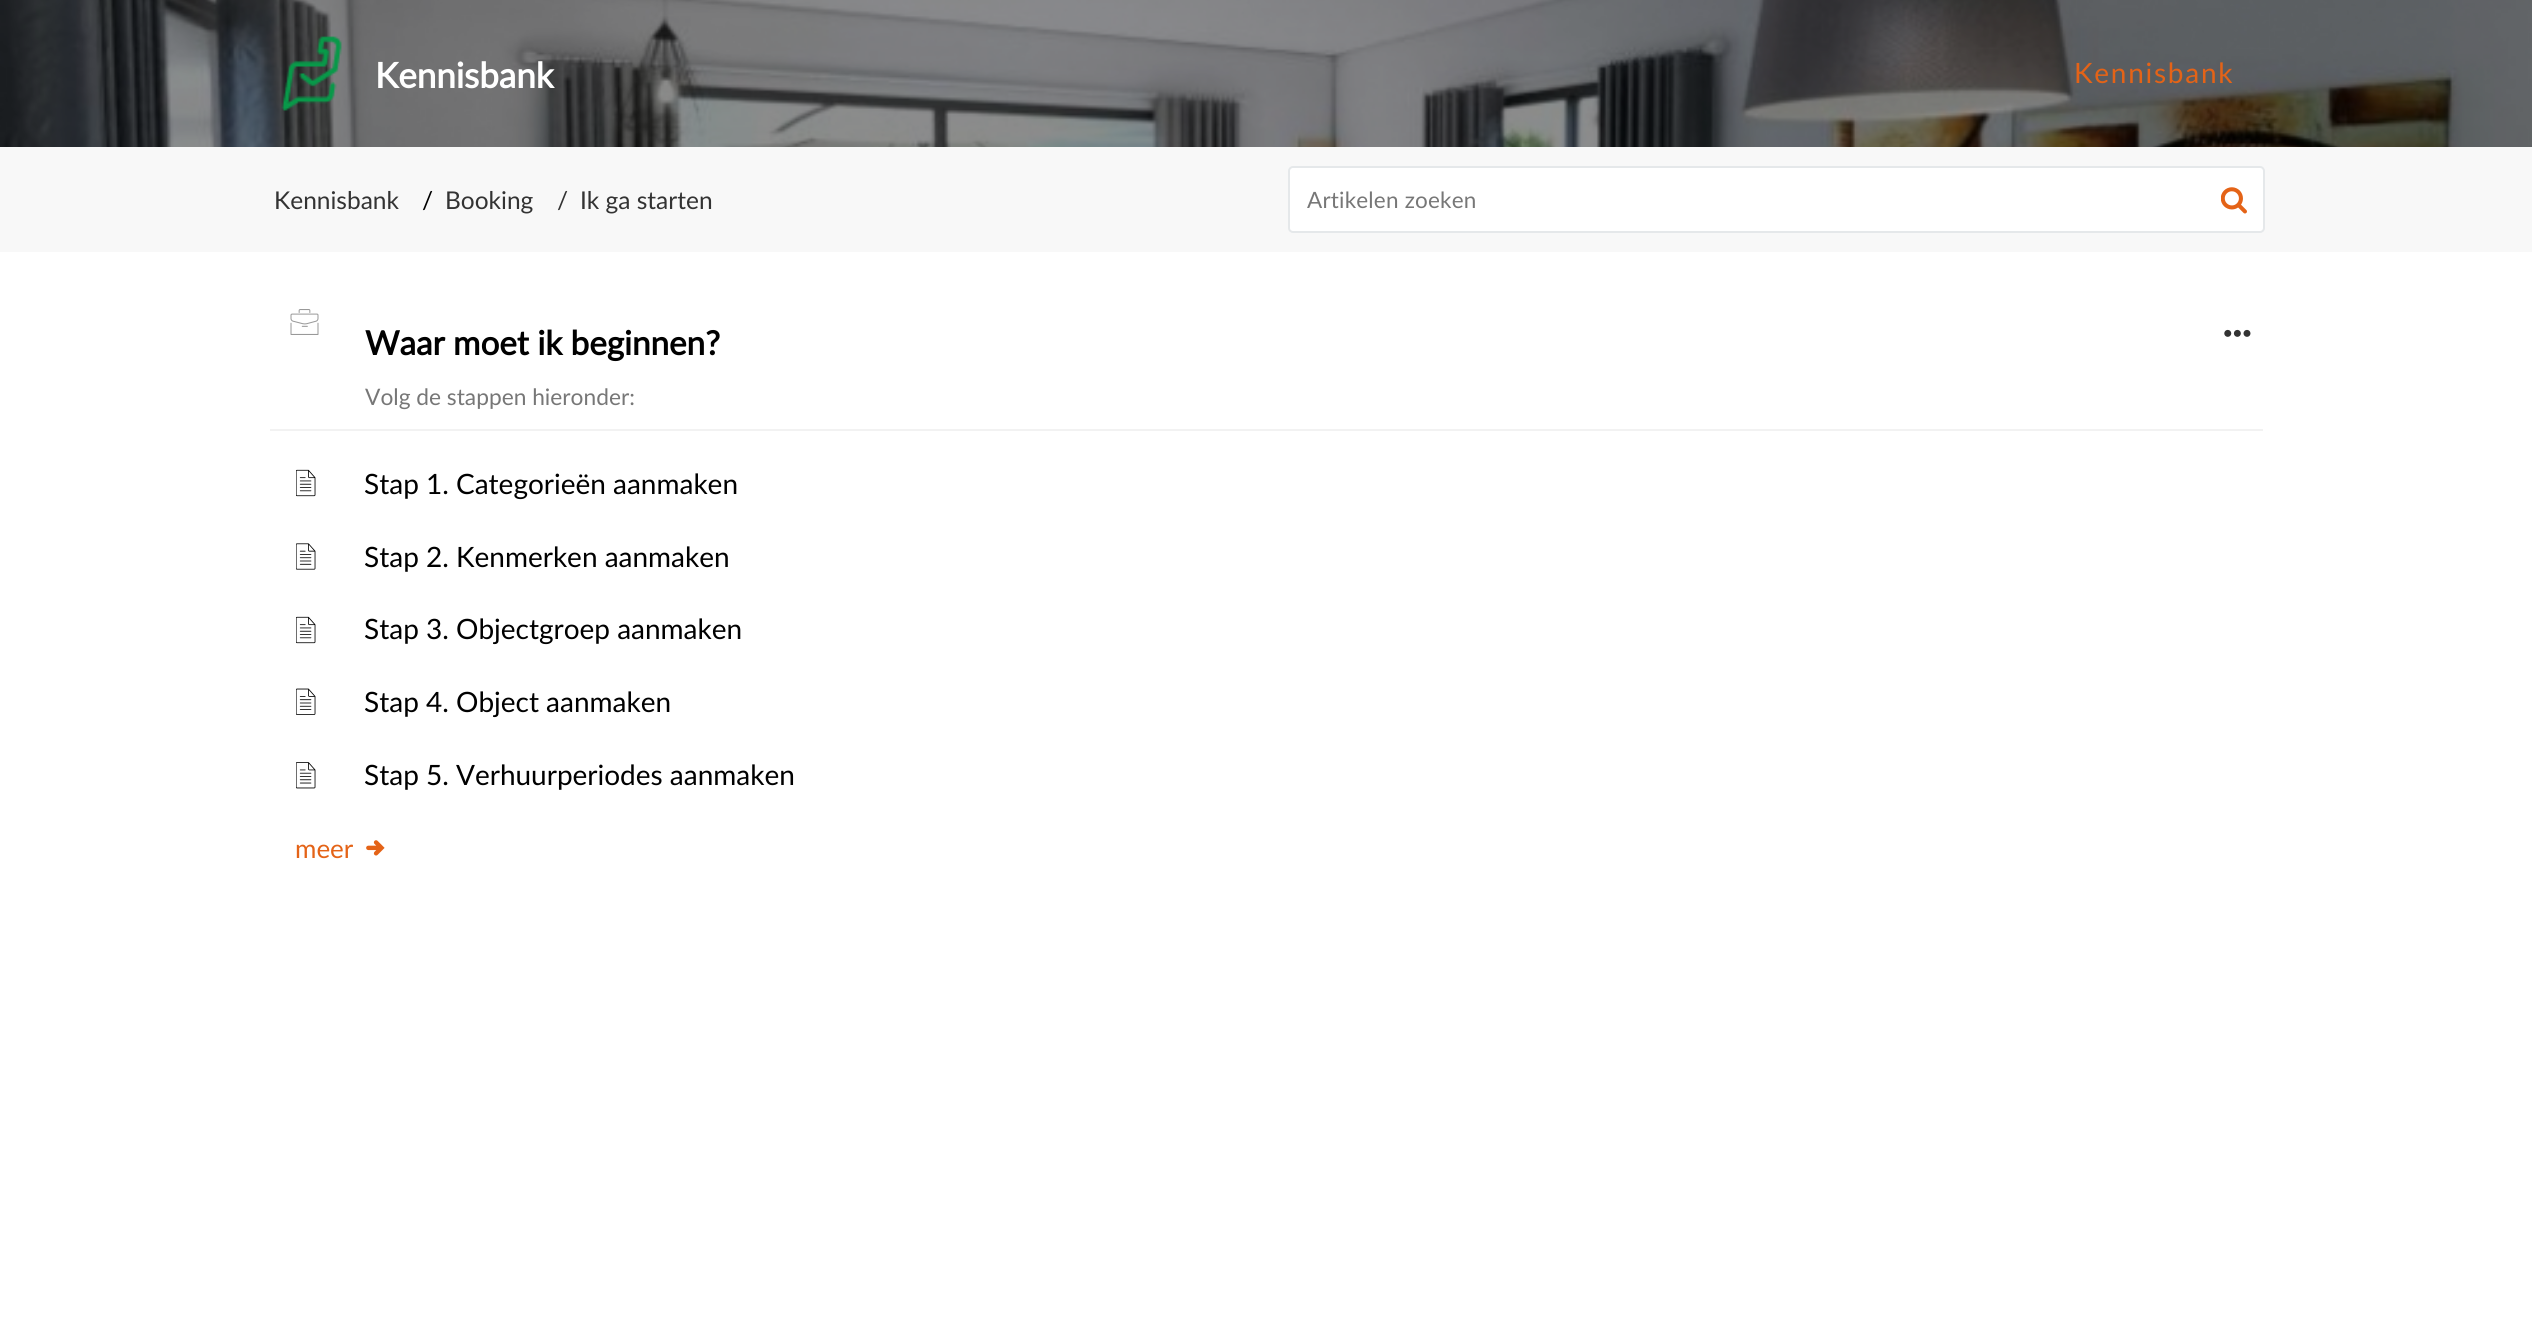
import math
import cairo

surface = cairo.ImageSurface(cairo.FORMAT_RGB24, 2532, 1329)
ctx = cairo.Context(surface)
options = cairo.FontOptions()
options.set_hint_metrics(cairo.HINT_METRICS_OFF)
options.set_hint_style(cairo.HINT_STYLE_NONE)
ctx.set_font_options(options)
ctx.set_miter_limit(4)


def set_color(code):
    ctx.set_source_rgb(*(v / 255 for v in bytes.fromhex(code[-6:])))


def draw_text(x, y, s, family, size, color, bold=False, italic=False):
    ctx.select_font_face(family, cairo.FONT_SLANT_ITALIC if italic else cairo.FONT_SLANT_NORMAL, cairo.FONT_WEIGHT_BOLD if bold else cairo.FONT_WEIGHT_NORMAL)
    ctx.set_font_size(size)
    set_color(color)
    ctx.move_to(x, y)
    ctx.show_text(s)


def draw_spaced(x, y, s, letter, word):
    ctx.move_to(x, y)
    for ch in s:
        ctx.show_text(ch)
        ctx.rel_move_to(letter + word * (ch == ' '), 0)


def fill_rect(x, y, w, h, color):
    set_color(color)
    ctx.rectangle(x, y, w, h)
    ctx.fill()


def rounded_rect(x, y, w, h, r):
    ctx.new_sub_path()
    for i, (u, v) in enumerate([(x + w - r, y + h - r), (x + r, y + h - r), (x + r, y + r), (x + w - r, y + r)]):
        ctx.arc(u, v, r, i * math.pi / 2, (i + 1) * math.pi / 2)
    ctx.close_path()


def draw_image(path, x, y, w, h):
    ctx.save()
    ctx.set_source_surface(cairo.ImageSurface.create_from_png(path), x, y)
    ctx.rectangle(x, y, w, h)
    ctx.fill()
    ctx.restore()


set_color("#ffffff")
ctx.paint()
draw_image("assets/img1.png", 0, 0, 2532, 147)
draw_image("assets/img2.png", 281, 36, 61, 75)
draw_text(375, 88, "Kennisbank", "Lato", 35, "#ffffff", bold=True)
ctx.select_font_face("Lato")
ctx.set_font_size(28)
set_color("#e46317")
draw_spaced(2074, 83, "Kennisbank", 1.75, 0)
fill_rect(0, 147, 2532, 105, "#f8f8f8")
draw_text(274, 209, "Kennisbank", "Lato", 24.5, "#333333")
draw_text(422, 209, "/", "Lato", 24.5, "#000000")
draw_text(445, 209, "Booking", "Lato", 24.5, "#333333")
draw_text(557, 209, "/", "Lato", 24.5, "#333333")
draw_text(580, 209, "Ik ga starten", "Lato", 24.5, "#333333")
set_color("#ffffff")
rounded_rect(1289, 167, 975, 65, 4)
ctx.fill_preserve()
set_color("#e5e8ea")
ctx.stroke()
ctx.set_font_size(22.5)
set_color("#777777")
draw_spaced(1307, 208, "Artikelen zoeken", 0.2, 0)
draw_image("assets/img3.png", 2221, 187, 26, 27)
fill_rect(270, 429, 1993, 2, "#f2f2f2")
draw_image("assets/img4.png", 290, 309, 29, 26)
draw_text(365, 355, "Waar moet ik beginnen?", "Lato", 33.25, "#000000", bold=True)
draw_text(365, 405, "Volg de stappen hieronder:", "Lato", 22.75, "#777777")
draw_image("assets/img5.png", 2224, 329, 27, 8)
draw_image("assets/img6.png", 296, 469, 20, 28)
draw_text(364, 494, "Stap 1. Categorieën aanmaken", "Lato", 28, "#000000")
draw_image("assets/img7.png", 296, 543, 20, 27)
draw_text(364, 567, "Stap 2. Kenmerken aanmaken", "Lato", 28, "#000000")
draw_image("assets/img6.png", 296, 616, 20, 28)
draw_text(364, 639, "Stap 3. Objectgroep aanmaken", "Lato", 28, "#000000")
draw_image("assets/img8.png", 296, 688, 20, 27)
draw_text(364, 712, "Stap 4. Object aanmaken", "Lato", 28, "#000000")
draw_image("assets/img9.png", 296, 762, 20, 27)
draw_text(364, 785, "Stap 5. Verhuurperiodes aanmaken", "Lato", 28, "#000000")
draw_text(295, 858, "meer", "Lato", 26, "#e46317")
draw_image("assets/img10.png", 366, 840, 19, 16)
surface.write_to_png("output.png")
